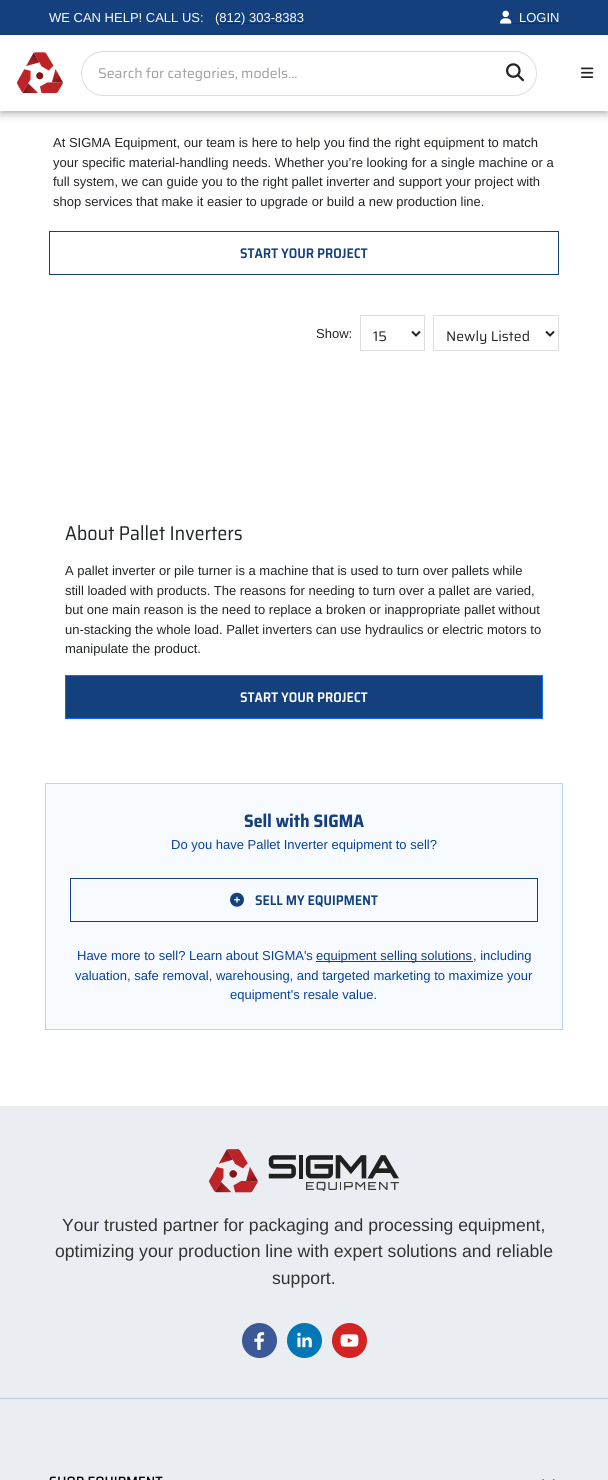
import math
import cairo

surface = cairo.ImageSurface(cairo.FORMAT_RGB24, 608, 1480)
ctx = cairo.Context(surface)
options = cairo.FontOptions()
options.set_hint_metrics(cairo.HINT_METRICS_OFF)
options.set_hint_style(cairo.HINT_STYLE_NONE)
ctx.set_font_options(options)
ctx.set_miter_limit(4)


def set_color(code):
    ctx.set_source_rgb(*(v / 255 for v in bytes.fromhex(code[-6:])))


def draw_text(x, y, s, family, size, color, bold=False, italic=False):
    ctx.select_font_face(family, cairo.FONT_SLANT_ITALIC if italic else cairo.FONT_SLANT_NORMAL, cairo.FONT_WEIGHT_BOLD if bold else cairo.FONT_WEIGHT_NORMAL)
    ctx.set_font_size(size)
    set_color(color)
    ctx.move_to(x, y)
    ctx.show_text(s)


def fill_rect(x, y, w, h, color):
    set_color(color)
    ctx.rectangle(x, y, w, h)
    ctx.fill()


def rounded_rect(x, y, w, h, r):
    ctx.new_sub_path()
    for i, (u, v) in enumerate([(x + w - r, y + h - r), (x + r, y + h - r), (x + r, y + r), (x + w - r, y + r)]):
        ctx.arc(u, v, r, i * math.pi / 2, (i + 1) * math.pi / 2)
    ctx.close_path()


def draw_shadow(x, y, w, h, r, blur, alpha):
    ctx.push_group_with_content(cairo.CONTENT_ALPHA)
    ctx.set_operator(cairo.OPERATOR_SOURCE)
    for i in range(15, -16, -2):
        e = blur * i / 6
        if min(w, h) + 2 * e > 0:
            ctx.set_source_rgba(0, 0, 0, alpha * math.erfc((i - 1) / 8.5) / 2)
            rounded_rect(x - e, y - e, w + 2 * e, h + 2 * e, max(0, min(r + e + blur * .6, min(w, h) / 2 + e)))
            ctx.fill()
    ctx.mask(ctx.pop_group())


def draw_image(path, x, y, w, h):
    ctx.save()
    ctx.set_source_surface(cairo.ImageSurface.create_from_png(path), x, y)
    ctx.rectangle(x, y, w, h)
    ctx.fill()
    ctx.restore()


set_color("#ffffff")
ctx.paint()
fill_rect(0, 0, 608, 35, "#14407d")
draw_text(49, 22, "WE CAN HELP! CALL US:", "Liberation Sans", 13, "#ffffff")
fill_rect(215, 23, 89, 1, "#103364")
draw_text(215, 22, "(812) 303-8383", "Liberation Sans", 13, "#ffffff")
draw_image("assets/img1.png", 500, 10, 12, 14)
draw_text(519, 22, "LOGIN", "Liberation Sans", 13, "#ffffff")
fill_rect(519, 23, 40, 1, "#103364")
ctx.set_source_rgba(0, 0, 0, 0.2)
ctx.rectangle(511, 23, 8, 1)
ctx.fill()
set_color("#000000")
draw_shadow(0, 40, 608, 76, 0, 3.5, 0.16)
draw_shadow(0, 36, 608, 76, 0, 2, 0.16)
fill_rect(0, 35, 608, 76, "#ffffff")
draw_image("assets/img2.png", 16, 52, 47, 42)
rounded_rect(81.5, 51.5, 455, 44, 22)
set_color("#dddddd")
ctx.set_line_width(1)
ctx.stroke()
draw_text(98, 78, "Search for categories, models...", "Saira", 14, "#9e9e9e")
draw_image("assets/img3.png", 506, 63, 18, 19)
draw_image("assets/img4.png", 581, 67, 13, 11)
draw_text(53, 147, "At SIGMA Equipment, our team is here to help you find the right equipment to match", "Liberation Sans", 13, "#212529")
draw_text(53, 167, "your specific material-handling needs. Whether you’re looking for a single machine or a", "Liberation Sans", 13, "#212529")
draw_text(53, 186, "full system, we can guide you to the right pallet inverter and support your project with", "Liberation Sans", 13, "#212529")
draw_text(53, 206, "shop services that make it easier to upgrade or build a new production line.", "Liberation Sans", 13, "#212529")
ctx.rectangle(49.5, 231.5, 509, 43)
set_color("#14407d")
ctx.stroke()
draw_image("assets/img5.png", 240, 248, 128, 11)
draw_text(316, 338, "Show:", "Liberation Sans", 13, "#212529")
ctx.rectangle(360.5, 315.5, 64, 35)
set_color("#dddddd")
ctx.stroke()
ctx.new_path()
ctx.move_to(412, 331.5)
ctx.line_to(416, 335.5)
ctx.line_to(420, 331.5)
set_color("#232323")
ctx.set_line_width(2)
ctx.stroke()
draw_text(373, 341, "15", "Saira", 14, "#232323")
ctx.rectangle(433.5, 315.5, 125, 35)
set_color("#dddddd")
ctx.set_line_width(1)
ctx.stroke()
ctx.new_path()
ctx.move_to(546, 331.5)
ctx.line_to(550, 335.5)
ctx.line_to(554, 331.5)
set_color("#232323")
ctx.set_line_width(2)
ctx.stroke()
draw_text(446, 341, "Newly Listed", "Saira", 14, "#232323")
draw_image("assets/img6.png", 65, 525, 177, 16)
draw_text(65, 575, "A pallet inverter or pile turner is a machine that is used to turn over pallets while", "Liberation Sans", 13, "#212529")
draw_text(65, 595, "still loaded with products. The reasons for needing to turn over a pallet are varied,", "Liberation Sans", 13, "#212529")
draw_text(65, 614, "but one main reason is the need to replace a broken or inappropriate pallet without", "Liberation Sans", 13, "#212529")
draw_text(65, 634, "un-stacking the whole load. Pallet inverters can use hydraulics or electric motors to", "Liberation Sans", 13, "#212529")
draw_text(65, 653, "manipulate the product.", "Liberation Sans", 13, "#212529")
set_color("#14407d")
ctx.rectangle(65.5, 675.5, 477, 43)
ctx.fill_preserve()
set_color("#0d6efd")
ctx.set_line_width(1)
ctx.stroke()
draw_image("assets/img7.png", 240, 692, 128, 11)
set_color("#f7faff")
ctx.rectangle(45.5, 783.5, 517, 246)
ctx.fill_preserve()
set_color("#b6d4fe")
ctx.stroke()
draw_image("assets/img8.png", 244, 813, 120, 15)
draw_text(171, 849, "Do you have Pallet Inverter equipment to sell?", "Liberation Sans", 13, "#084298")
ctx.rectangle(70.5, 878.5, 467, 43)
set_color("#14407d")
ctx.stroke()
draw_image("assets/img9.png", 230, 892, 14, 15)
draw_image("assets/img10.png", 255, 895, 123, 12)
draw_text(77, 960, "Have more to sell? Learn about SIGMA's", "Liberation Sans", 13, "#084298")
fill_rect(316, 961, 157, 1, "#14407d")
draw_text(316, 960, "equipment selling solutions", "Liberation Sans", 13, "#14407d")
draw_text(473, 960, ", including", "Liberation Sans", 13, "#084298")
draw_text(75, 980, "valuation, safe removal, warehousing, and targeted marketing to maximize your", "Liberation Sans", 13, "#084298")
draw_text(230, 999, "equipment's resale value.", "Liberation Sans", 13, "#084298")
fill_rect(0, 1106, 608, 292, "#eaeef3")
draw_image("assets/img11.png", 209, 1149, 190, 44)
draw_text(62, 1231, "Your trusted partner for packaging and processing equipment,", "Liberation Sans", 17.6, "#333333")
draw_text(55, 1257, "optimizing your production line with expert solutions and reliable", "Liberation Sans", 17.6, "#333333")
draw_text(272, 1284, "support.", "Liberation Sans", 17.6, "#333333")
draw_image("assets/img12.png", 242, 1323, 35, 35)
draw_image("assets/img13.png", 287, 1323, 35, 35)
draw_image("assets/img14.png", 332, 1323, 35, 35)
fill_rect(0, 1399, 608, 81, "#eaeef3")
fill_rect(0, 1398, 608, 1, "#bccada")
draw_image("assets/img15.png", 49, 1476, 114, 4)
draw_image("assets/img16.png", 542, 1479, 13, 1)
surface.write_to_png("output.png")
